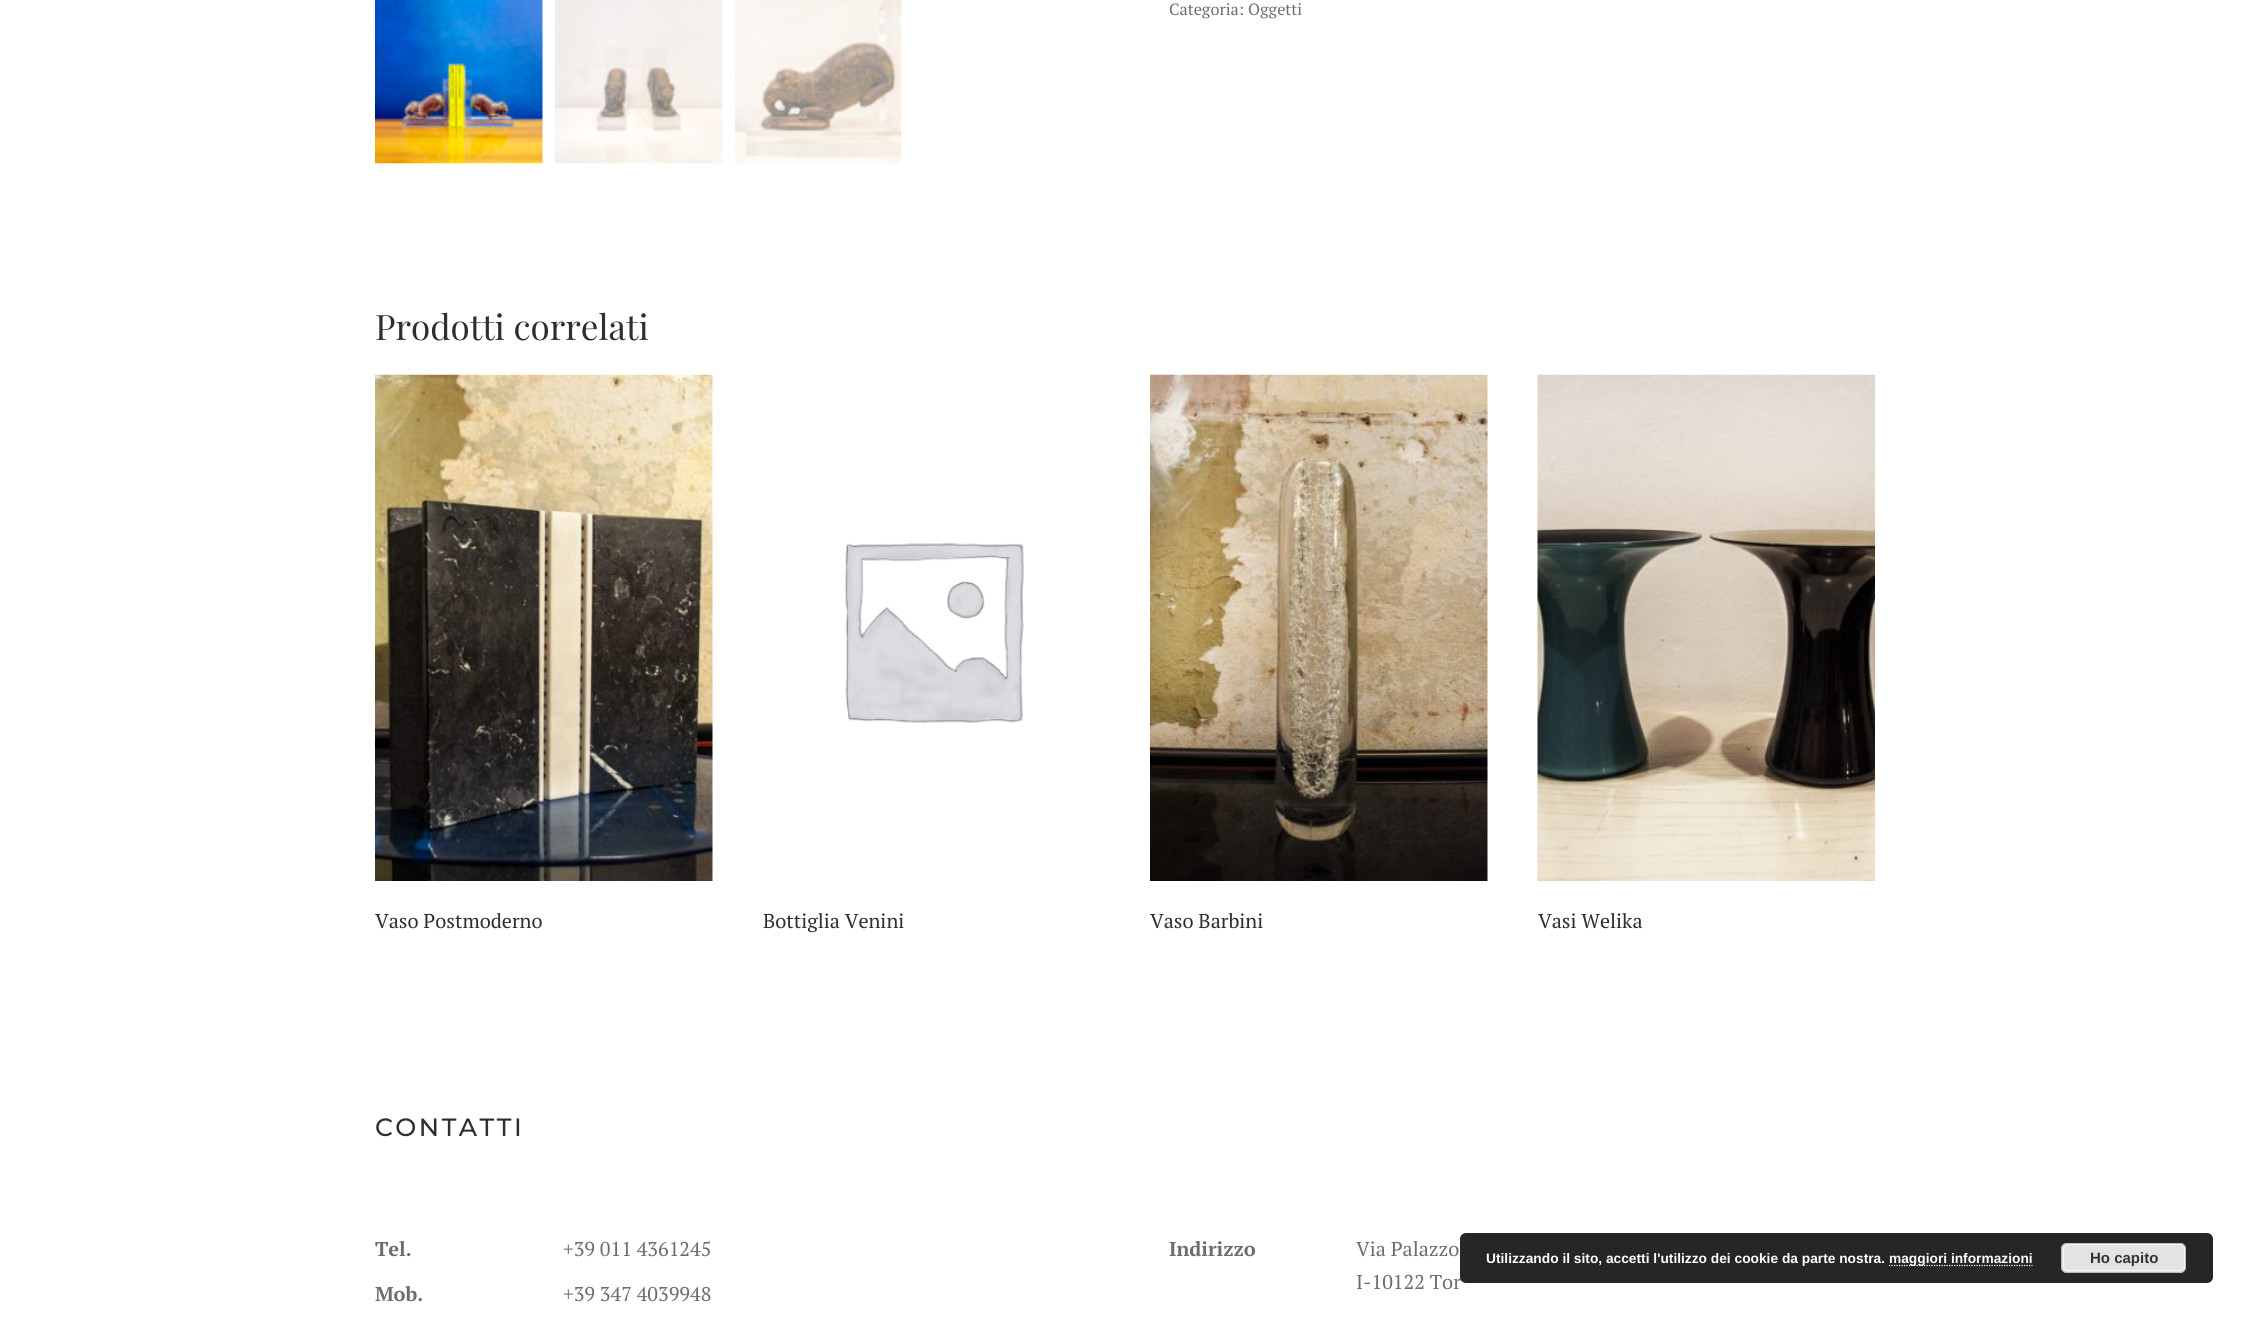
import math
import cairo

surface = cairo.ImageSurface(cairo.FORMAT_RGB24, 2250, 1320)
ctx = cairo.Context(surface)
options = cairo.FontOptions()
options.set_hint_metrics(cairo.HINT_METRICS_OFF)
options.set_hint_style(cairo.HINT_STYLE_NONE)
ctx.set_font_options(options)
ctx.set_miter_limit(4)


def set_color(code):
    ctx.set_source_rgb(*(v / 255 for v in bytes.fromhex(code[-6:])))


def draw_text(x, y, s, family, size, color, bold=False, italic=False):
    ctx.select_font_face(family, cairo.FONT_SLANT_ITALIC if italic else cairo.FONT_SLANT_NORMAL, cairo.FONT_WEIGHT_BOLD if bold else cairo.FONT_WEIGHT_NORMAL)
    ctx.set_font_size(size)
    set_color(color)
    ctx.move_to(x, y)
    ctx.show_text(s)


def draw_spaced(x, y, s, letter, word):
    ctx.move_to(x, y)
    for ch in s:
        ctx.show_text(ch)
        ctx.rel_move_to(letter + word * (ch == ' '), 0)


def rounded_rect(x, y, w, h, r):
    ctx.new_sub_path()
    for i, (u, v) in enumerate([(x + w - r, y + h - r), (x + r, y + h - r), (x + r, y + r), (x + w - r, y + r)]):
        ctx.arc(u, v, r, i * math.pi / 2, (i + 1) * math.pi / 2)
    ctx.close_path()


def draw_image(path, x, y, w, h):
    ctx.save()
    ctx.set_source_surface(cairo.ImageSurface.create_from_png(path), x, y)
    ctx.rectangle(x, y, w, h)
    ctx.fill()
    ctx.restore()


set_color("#ffffff")
ctx.paint()
draw_image("assets/img1.png", 375, 0, 168, 164)
draw_image("assets/img2.png", 555, 0, 168, 164)
draw_image("assets/img3.png", 735, 0, 167, 164)
draw_text(1169, 15, "Categoria: Oggetti", "PT Serif", 16.25, "#6c6d74")
draw_text(375, 340, "Prodotti correlati", "Playfair Display", 35, "#2d2e33")
draw_image("assets/img4.png", 375, 374, 338, 507)
draw_text(375, 928, "Vaso Postmoderno", "PT Serif", 20, "#2d2e33")
draw_image("assets/img5.png", 845, 543, 179, 180)
draw_text(763, 928, "Bottiglia Venini", "PT Serif", 20, "#2d2e33")
draw_image("assets/img6.png", 1150, 374, 338, 507)
draw_text(1150, 928, "Vaso Barbini", "PT Serif", 20, "#2d2e33")
draw_image("assets/img7.png", 1537, 374, 338, 507)
draw_text(1538, 928, "Vasi Welika", "PT Serif", 20, "#2d2e33")
ctx.select_font_face("Montserrat Thin")
ctx.set_font_size(25)
draw_spaced(375, 1136, "CONTATTI", 2.5, 0)
draw_text(375, 1256, "Tel.", "PT Serif", 20, "#6c6d74", bold=True)
draw_text(563, 1256, "+39 011 4361245", "PT Serif", 20, "#6c6d74")
draw_text(375, 1301, "Mob.", "PT Serif", 20, "#6c6d74", bold=True)
draw_text(563, 1301, "+39 347 4039948", "PT Serif", 20, "#6c6d74")
draw_text(1169, 1256, "Indirizzo", "PT Serif", 20, "#6c6d74", bold=True)
draw_text(1356, 1256, "Via Palazzo", "PT Serif", 20, "#6c6d74")
draw_text(1356, 1289, "I-10122 Tor", "PT Serif", 20, "#6c6d74")
ctx.set_source_rgba(0, 0, 0, 0.85)
rounded_rect(1460, 1233, 753, 50, 6)
ctx.fill()
draw_text(1486, 1263, "Utilizzando il sito, accetti l'utilizzo dei cookie da parte nostra.", "Liberation Sans", 13.75, "#ffffff", bold=True)
ctx.new_path()
ctx.move_to(1889, 1265.5)
ctx.line_to(2032.5, 1265.5)
ctx.set_line_width(1.2)
ctx.set_dash([1.25, 1.25])
ctx.stroke()
draw_text(1889, 1263, "maggiori informazioni", "Liberation Sans", 13.75, "#ffffff", bold=True)
set_color("#e3e3e3")
rounded_rect(2061, 1243, 125, 30, 6)
ctx.fill()
rounded_rect(2063.5, 1244.5, 121, 26, 4.5)
set_color("#f6f6f6")
ctx.set_line_width(1)
ctx.set_dash([])
ctx.stroke()
rounded_rect(2061.5, 1243.5, 124, 29, 5.5)
set_color("#bbbbbb")
ctx.stroke()
draw_text(2090, 1263, "Ho capito", "Liberation Sans", 15, "#333333", bold=True)
surface.write_to_png("output.png")
